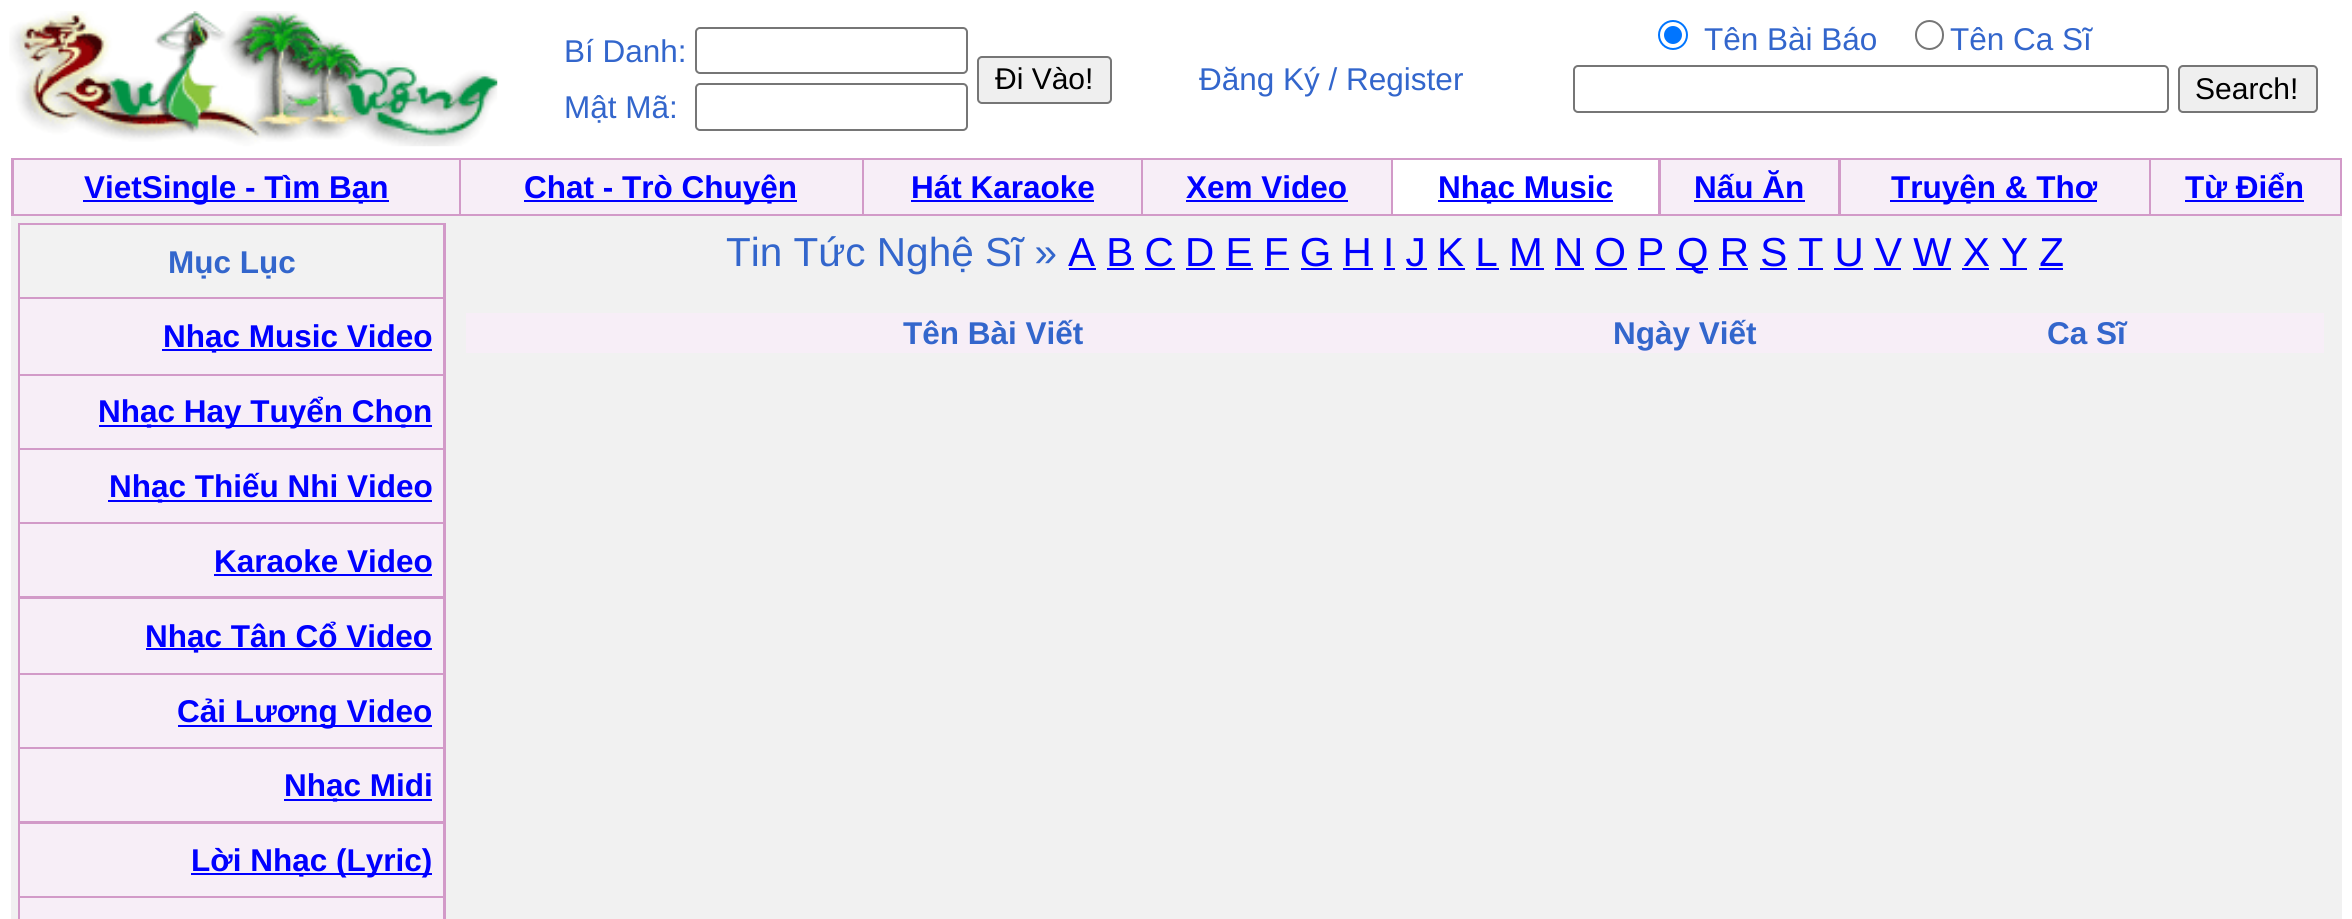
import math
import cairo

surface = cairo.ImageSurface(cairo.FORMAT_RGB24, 2352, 919)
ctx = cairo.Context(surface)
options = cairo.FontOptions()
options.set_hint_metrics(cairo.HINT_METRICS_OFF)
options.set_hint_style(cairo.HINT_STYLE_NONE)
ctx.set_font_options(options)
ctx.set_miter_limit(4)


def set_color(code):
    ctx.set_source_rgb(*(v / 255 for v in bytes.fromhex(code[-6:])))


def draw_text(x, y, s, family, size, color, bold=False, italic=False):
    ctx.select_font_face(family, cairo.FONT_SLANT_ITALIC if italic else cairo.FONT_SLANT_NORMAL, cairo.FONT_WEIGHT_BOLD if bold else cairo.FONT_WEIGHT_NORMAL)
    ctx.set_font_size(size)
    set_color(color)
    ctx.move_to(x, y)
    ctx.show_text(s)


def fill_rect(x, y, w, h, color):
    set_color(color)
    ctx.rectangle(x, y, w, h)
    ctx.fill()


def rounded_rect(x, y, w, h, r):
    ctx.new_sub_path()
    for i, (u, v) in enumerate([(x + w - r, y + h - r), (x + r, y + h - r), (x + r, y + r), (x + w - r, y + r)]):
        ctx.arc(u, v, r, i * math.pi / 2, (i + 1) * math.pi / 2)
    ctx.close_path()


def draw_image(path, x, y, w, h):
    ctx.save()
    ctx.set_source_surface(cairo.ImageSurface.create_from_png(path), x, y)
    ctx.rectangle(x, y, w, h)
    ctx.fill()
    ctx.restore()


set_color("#ffffff")
ctx.paint()
draw_image("assets/img1.png", 9, 11, 489, 136)
draw_text(564, 62, "Bí Danh:", "Liberation Sans", 31.5, "#3366cc")
rounded_rect(696, 28, 271, 45, 4)
set_color("#767676")
ctx.stroke()
set_color("#efefef")
rounded_rect(978, 57, 133, 46, 4)
ctx.fill_preserve()
set_color("#767676")
ctx.stroke()
draw_text(995, 89, "Đi Vào!", "Liberation Sans", 30, "#000000")
draw_text(564, 118, "Mật Mã:", "Liberation Sans", 31.5, "#3366cc")
rounded_rect(696, 84, 271, 46, 4)
set_color("#767676")
ctx.stroke()
draw_text(1199, 90, "Đăng Ký / Register", "Liberation Sans", 31.5, "#3366cc")
ctx.new_path()
ctx.arc(1673, 35, 14, 0, 2 * math.pi)
set_color("#0075ff")
ctx.stroke()
ctx.arc(1673, 35, 9, 0, 2 * math.pi)
ctx.fill()
draw_text(1704, 50, "Tên Bài Báo", "Liberation Sans", 31.5, "#3366cc")
rounded_rect(1916, 21, 27, 28, 13.5)
set_color("#767676")
ctx.stroke()
draw_text(1950, 50, "Tên Ca Sĩ", "Liberation Sans", 31.5, "#3366cc")
rounded_rect(1574, 66, 594, 46, 4)
set_color("#767676")
ctx.stroke()
set_color("#efefef")
rounded_rect(2179, 66, 138, 46, 4)
ctx.fill_preserve()
set_color("#767676")
ctx.stroke()
draw_text(2195, 99, "Search!", "Liberation Sans", 30, "#000000")
fill_rect(11, 158, 2331, 58, "#d29ac8")
fill_rect(14, 160, 445, 54, "#f7eef7")
fill_rect(83, 200, 306, 2, "#0000ff")
draw_text(84, 198, "VietSingle - Tìm Bạn", "Liberation Sans", 31.5, "#0000ff", bold=True)
fill_rect(461, 160, 401, 54, "#f7eef7")
fill_rect(524, 200, 273, 2, "#0000ff")
draw_text(524, 198, "Chat - Trò Chuyện", "Liberation Sans", 31.5, "#0000ff", bold=True)
fill_rect(864, 160, 277, 54, "#f7eef7")
draw_text(911, 198, "Hát Karaoke", "Liberation Sans", 31.5, "#0000ff", bold=True)
fill_rect(911, 200, 183, 2, "#0000ff")
fill_rect(1143, 160, 248, 54, "#f7eef7")
draw_text(1186, 198, "Xem Video", "Liberation Sans", 31.5, "#0000ff", bold=True)
fill_rect(1186, 200, 162, 2, "#0000ff")
fill_rect(1393, 160, 265, 54, "#ffffff")
fill_rect(1438, 200, 175, 2, "#0000ff")
draw_text(1438, 198, "Nhạc Music", "Liberation Sans", 31.5, "#0000ff", bold=True)
fill_rect(1661, 160, 177, 54, "#f7eef7")
draw_text(1694, 198, "Nấu Ăn", "Liberation Sans", 31.5, "#0000ff", bold=True)
fill_rect(1694, 200, 111, 2, "#0000ff")
fill_rect(1841, 160, 308, 54, "#f7eef7")
fill_rect(1890, 200, 207, 2, "#0000ff")
draw_text(1891, 198, "Truyện & Thơ", "Liberation Sans", 31.5, "#0000ff", bold=True)
fill_rect(2151, 160, 189, 54, "#f7eef7")
draw_text(2185, 198, "Từ Điển", "Liberation Sans", 31.5, "#0000ff", bold=True)
fill_rect(2185, 200, 119, 2, "#0000ff")
fill_rect(11, 216, 2331, 703, "#f1f1f1")
fill_rect(18, 223, 428, 696, "#d29ac8")
fill_rect(20, 225, 423, 72, "#f2f2f2")
draw_text(168, 273, "Mục Lục", "Liberation Sans", 31.5, "#3366cc", bold=True)
fill_rect(20, 299, 423, 75, "#f7eef7")
fill_rect(162, 349, 270, 2, "#0000ff")
draw_text(163, 347, "Nhạc Music Video", "Liberation Sans", 31.5, "#0000ff", bold=True)
fill_rect(20, 376, 423, 72, "#f7eef7")
fill_rect(99, 425, 333, 2, "#0000ff")
draw_text(98, 422, "Nhạc Hay Tuyển Chọn", "Liberation Sans", 31.5, "#0000ff", bold=True)
fill_rect(20, 450, 423, 72, "#f7eef7")
fill_rect(108, 500, 324, 2, "#0000ff")
draw_text(109, 497, "Nhạc Thiếu Nhi Video", "Liberation Sans", 31.5, "#0000ff", bold=True)
fill_rect(20, 524, 423, 72, "#f7eef7")
draw_text(214, 572, "Karaoke Video", "Liberation Sans", 31.5, "#0000ff", bold=True)
fill_rect(214, 574, 218, 2, "#0000ff")
fill_rect(20, 599, 423, 74, "#f7eef7")
fill_rect(146, 648, 286, 2, "#0000ff")
draw_text(145, 647, "Nhạc Tân Cổ Video", "Liberation Sans", 31.5, "#0000ff", bold=True)
fill_rect(20, 675, 423, 72, "#f7eef7")
fill_rect(178, 725, 254, 2, "#0000ff")
draw_text(177, 722, "Cải Lương Video", "Liberation Sans", 31.5, "#0000ff", bold=True)
fill_rect(20, 749, 423, 72, "#f7eef7")
fill_rect(284, 799, 148, 2, "#0000ff")
draw_text(284, 796, "Nhạc Midi", "Liberation Sans", 31.5, "#0000ff", bold=True)
fill_rect(20, 824, 423, 72, "#f7eef7")
fill_rect(191, 873, 241, 2, "#0000ff")
draw_text(191, 871, "Lời Nhạc (Lyric)", "Liberation Sans", 31.5, "#0000ff", bold=True)
fill_rect(20, 898, 423, 21, "#f7eef7")
draw_text(726, 266, "Tin Tức Nghệ Sĩ »", "Liberation Sans", 40.5, "#3366cc")
draw_text(1068, 266, "A B C D E F G H I J K L M N O P", "Liberation Sans", 40.5, "#0000ff")
fill_rect(1069, 268, 27, 2, "#0000ff")
fill_rect(1676, 268, 32, 2, "#0000ff")
draw_text(1677, 266, "Q R S T U V W X Y Z", "Liberation Sans", 40.5, "#0000ff")
fill_rect(1107, 268, 27, 2, "#0000ff")
fill_rect(1145, 268, 30, 2, "#0000ff")
fill_rect(1186, 268, 29, 2, "#0000ff")
fill_rect(1226, 268, 27, 2, "#0000ff")
fill_rect(1265, 268, 24, 2, "#0000ff")
fill_rect(1301, 268, 31, 2, "#0000ff")
fill_rect(1343, 268, 30, 2, "#0000ff")
fill_rect(1384, 268, 11, 2, "#0000ff")
fill_rect(1406, 268, 21, 2, "#0000ff")
fill_rect(1438, 268, 27, 2, "#0000ff")
fill_rect(1476, 268, 23, 2, "#0000ff")
fill_rect(1510, 268, 34, 2, "#0000ff")
fill_rect(1555, 268, 29, 2, "#0000ff")
fill_rect(1595, 268, 32, 2, "#0000ff")
fill_rect(1638, 268, 27, 2, "#0000ff")
fill_rect(1719, 268, 29, 2, "#0000ff")
fill_rect(1760, 268, 27, 2, "#0000ff")
fill_rect(1798, 268, 25, 2, "#0000ff")
fill_rect(1834, 268, 29, 2, "#0000ff")
fill_rect(1874, 268, 27, 2, "#0000ff")
fill_rect(1913, 268, 38, 2, "#0000ff")
fill_rect(1962, 268, 27, 2, "#0000ff")
fill_rect(2000, 268, 27, 2, "#0000ff")
fill_rect(2039, 268, 24, 2, "#0000ff")
fill_rect(466, 313, 1858, 40, "#f7eef7")
draw_text(903, 344, "Tên Bài Viết", "Liberation Sans", 31.5, "#3366cc", bold=True)
draw_text(1613, 344, "Ngày Viết", "Liberation Sans", 31.5, "#3366cc", bold=True)
draw_text(2047, 344, "Ca Sĩ", "Liberation Sans", 31.5, "#3366cc", bold=True)
surface.write_to_png("output.png")
